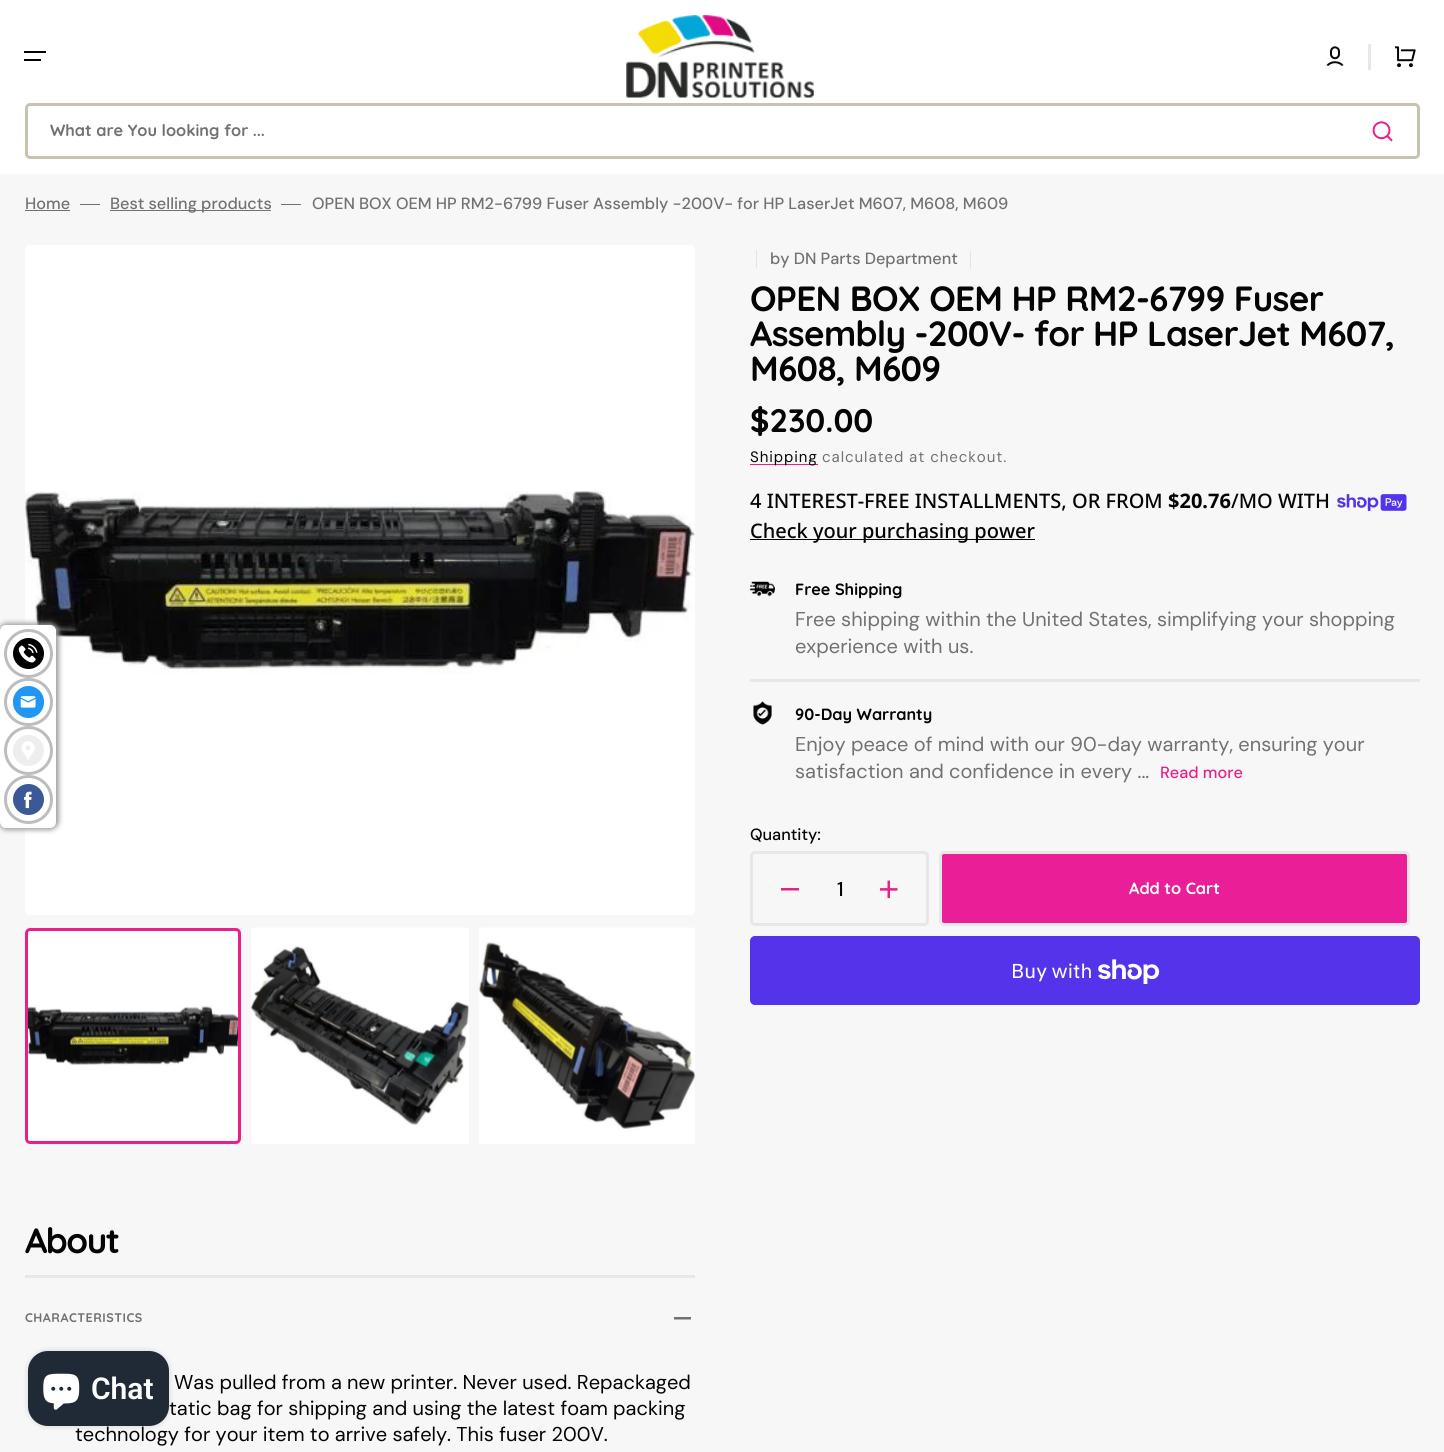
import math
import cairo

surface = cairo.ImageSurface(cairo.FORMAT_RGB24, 1444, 1452)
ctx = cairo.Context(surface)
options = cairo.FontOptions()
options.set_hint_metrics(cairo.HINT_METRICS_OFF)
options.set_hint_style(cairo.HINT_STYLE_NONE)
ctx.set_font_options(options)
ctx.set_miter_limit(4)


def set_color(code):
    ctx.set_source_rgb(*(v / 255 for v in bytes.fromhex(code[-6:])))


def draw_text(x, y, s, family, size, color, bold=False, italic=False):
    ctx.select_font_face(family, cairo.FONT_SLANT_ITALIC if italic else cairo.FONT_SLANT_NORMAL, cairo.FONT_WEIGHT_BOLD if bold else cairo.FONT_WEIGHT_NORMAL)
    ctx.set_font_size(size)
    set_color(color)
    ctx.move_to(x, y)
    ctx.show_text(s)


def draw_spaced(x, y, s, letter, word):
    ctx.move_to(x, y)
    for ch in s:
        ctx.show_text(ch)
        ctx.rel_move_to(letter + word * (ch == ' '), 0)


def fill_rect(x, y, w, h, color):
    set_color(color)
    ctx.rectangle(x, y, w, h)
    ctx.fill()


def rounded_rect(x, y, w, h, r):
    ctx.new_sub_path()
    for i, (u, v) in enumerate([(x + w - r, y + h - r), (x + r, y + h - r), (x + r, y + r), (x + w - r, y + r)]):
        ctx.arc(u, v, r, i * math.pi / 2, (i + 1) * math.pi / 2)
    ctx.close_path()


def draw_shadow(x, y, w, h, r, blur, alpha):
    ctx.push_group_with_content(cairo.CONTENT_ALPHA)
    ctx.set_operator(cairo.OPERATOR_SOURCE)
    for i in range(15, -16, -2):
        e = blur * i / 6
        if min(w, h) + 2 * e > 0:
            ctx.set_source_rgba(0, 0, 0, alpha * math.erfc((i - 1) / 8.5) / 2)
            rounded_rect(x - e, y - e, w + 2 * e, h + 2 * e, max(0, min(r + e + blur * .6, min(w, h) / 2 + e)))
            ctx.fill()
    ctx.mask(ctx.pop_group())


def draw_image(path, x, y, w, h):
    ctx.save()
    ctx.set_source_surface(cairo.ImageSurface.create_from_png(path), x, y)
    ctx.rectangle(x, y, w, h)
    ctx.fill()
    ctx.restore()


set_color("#f7f7f7")
ctx.paint()
fill_rect(0, 0, 1444, 174, "#ffffff")
fill_rect(24, 51, 22, 2, "#040404")
fill_rect(24, 59, 17, 2, "#040404")
draw_image("assets/img1.png", 626, 15, 188, 83)
draw_image("assets/img2.png", 1326, 46, 18, 20)
fill_rect(1368, 44, 3, 26, "#e7e7e7")
draw_image("assets/img3.png", 1395, 46, 21, 22)
rounded_rect(26.5, 104.5, 1392, 53, 3.5)
set_color("#c7c2b1")
ctx.set_line_width(3)
ctx.stroke()
draw_text(50, 136, "What are You looking for ...", "Quicksand", 16.25, "#717171", bold=True)
draw_image("assets/img4.png", 1372, 121, 21, 21)
draw_text(25, 209, "Home", "DM Sans Medium", 16.25, "#717171")
fill_rect(25, 210, 45, 1, "#717171")
fill_rect(80, 204, 20, 1, "#717171")
fill_rect(110, 210, 161, 1, "#717171")
draw_text(110, 209, "Best selling products", "DM Sans Medium", 16.25, "#717171")
fill_rect(281, 204, 20, 1, "#717171")
draw_text(312, 209, "OPEN BOX OEM HP RM2-6799 Fuser Assembly -200V- for HP LaserJet M607, M608, M609", "DM Sans Medium", 16.25, "#717171")
fill_rect(756, 250, 1, 18, "#e0e3ee")
draw_text(770, 264, "by DN Parts Department", "DM Sans Medium", 16.25, "#717171")
fill_rect(970, 251, 1, 18, "#e0e3ee")
ctx.select_font_face("Quicksand", cairo.FONT_SLANT_NORMAL, cairo.FONT_WEIGHT_BOLD)
ctx.set_font_size(35)
set_color("#040404")
draw_spaced(750, 311, "OPEN BOX OEM HP RM2-6799 Fuser", -0.7, 0)
draw_spaced(750, 346, "Assembly -200V- for HP LaserJet M607,", -0.7, 0)
draw_spaced(750, 381, "M608, M609", -0.7, 0)
draw_text(750, 432, "$230.00", "Quicksand", 32.5, "#040404", bold=True)
fill_rect(750, 464, 68, 1, "#ea1f87")
ctx.select_font_face("DM Sans")
ctx.set_font_size(15)
set_color("#040404")
draw_spaced(750, 462, "Shipping", 0.9, 0)
set_color("#717171")
draw_spaced(822, 462, "calculated at checkout.", 0.9, 0)
draw_text(750, 508, "4 INTEREST-FREE INSTALLMENTS, OR FROM", "Noto Sans Medium", 20, "#040404")
draw_text(1168, 508, "$20.76", "Noto Sans", 20, "#040404", bold=True)
draw_text(1231, 508, "/MO WITH", "Noto Sans Medium", 20, "#040404")
draw_image("assets/img5.png", 1337, 494, 70, 17)
fill_rect(750, 539, 285, 1, "#040404")
draw_text(750, 538, "Check your purchasing power", "Noto Sans Medium", 20, "#040404")
draw_image("assets/img6.png", 750, 581, 25, 16)
draw_text(795, 595, "Free Shipping", "Quicksand", 16.25, "#040404", bold=True)
draw_text(795, 626, "Free shipping within the United States, simplifying your shopping", "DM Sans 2", 20, "#717171")
draw_text(795, 653, "experience with us.", "DM Sans 2", 20, "#717171")
fill_rect(750, 679, 670, 3, "#e7e7e7")
draw_image("assets/img7.png", 753, 701, 19, 24)
draw_text(795, 720, "90-Day Warranty", "Quicksand", 16.25, "#040404", bold=True)
draw_text(795, 751, "Enjoy peace of mind with our 90-day warranty, ensuring your", "DM Sans 2", 20, "#717171")
draw_text(795, 778, "satisfaction and confidence in every ...", "DM Sans 2", 20, "#717171")
draw_text(1160, 778, "Read more", "DM Sans Medium", 16.25, "#ea1f87")
draw_text(750, 840, "Quantity:", "DM Sans Medium", 16.25, "#040404")
rounded_rect(751.5, 852.5, 176, 72, 3.5)
set_color("#e7e7e7")
ctx.stroke()
set_color("#ea1f87")
ctx.new_path()
ctx.move_to(789, 888)
ctx.line_to(799, 888)
ctx.line_to(799, 890.5)
ctx.line_to(781, 890.5)
ctx.line_to(781, 888)
ctx.close_path()
ctx.fill()
draw_text(837, 896, "1", "DM Sans 2 Medium", 20, "#040404")
draw_image("assets/img8.png", 880, 880, 18, 19)
set_color("#ea1f98")
rounded_rect(940.5, 852.5, 468, 72, 3.5)
ctx.fill_preserve()
set_color("#e7e7e7")
ctx.stroke()
draw_text(1129, 894, "Add to Cart", "Quicksand", 16.25, "#ffffff", bold=True)
set_color("#5433eb")
rounded_rect(750, 936, 670, 69, 5)
ctx.fill()
draw_text(1011, 978, "Buy with", "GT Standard", 20, "#ffffff")
draw_image("assets/img9.png", 1098, 959, 62, 25)
rounded_rect(25, 245, 670, 670, 5)
ctx.fill()
draw_image("assets/img10.png", 25, 491, 670, 183)
fill_rect(25, 928, 216, 216, "#ffffff")
draw_image("assets/img11.png", 25, 927, 216, 139)
rounded_rect(26.5, 929.5, 213, 213, 3.5)
set_color("#ea1f87")
ctx.stroke()
fill_rect(251, 928, 218, 216, "#ffffff")
draw_image("assets/img12.png", 251, 927, 218, 199)
fill_rect(479, 928, 216, 216, "#ffffff")
draw_image("assets/img13.png", 478, 927, 217, 203)
ctx.select_font_face("Quicksand", cairo.FONT_SLANT_NORMAL, cairo.FONT_WEIGHT_BOLD)
ctx.set_font_size(35)
set_color("#040404")
draw_spaced(25, 1253, "About", -1.5, 0)
fill_rect(25, 1275, 670, 3, "#e7e7e7")
ctx.set_font_size(12.5)
set_color("#717171")
draw_spaced(25, 1322, "CHARACTERISTICS", 0.5, 0)
ctx.new_path()
ctx.move_to(681, 1317)
ctx.line_to(691, 1317)
ctx.line_to(691, 1319.5)
ctx.line_to(674, 1319.5)
ctx.line_to(674, 1317)
ctx.close_path()
ctx.fill()
draw_text(174, 1389, "Was pulled from a new printer. Never used. Repackaged", "DM Sans 2", 20, "#040404")
draw_text(169, 1415, "tatic bag for shipping and using the latest foam packing", "DM Sans 2", 20, "#040404")
draw_text(75, 1441, "technology for your item to arrive safely. This fuser 200V.", "DM Sans 2", 20, "#040404")
set_color("#9e9e9e")
draw_shadow(-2, 623, 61, 207, 9, 2.5, 1)
set_color("#ffffff")
rounded_rect(0, 625, 56, 203, 6)
ctx.fill()
ctx.arc(28.5, 653.5, 23, 0, 2 * math.pi)
set_color("#bdbdbd")
ctx.stroke()
draw_image("assets/img14.png", 13, 638, 31, 31)
rounded_rect(5.5, 679.5, 46, 45, 22.5)
ctx.stroke()
draw_image("assets/img15.png", 13, 686, 31, 32)
ctx.arc(28.5, 750.5, 23, 0, 2 * math.pi)
ctx.stroke()
draw_image("assets/img16.png", 13, 735, 31, 31)
ctx.arc(28.5, 799.5, 23, 0, 2 * math.pi)
ctx.stroke()
draw_image("assets/img17.png", 13, 784, 31, 31)
set_color("#000000")
draw_shadow(28, 1351, 141, 75, 20, 3, 0.15)
set_color("#202a36")
rounded_rect(28, 1351, 141, 75, 20)
ctx.fill()
draw_image("assets/img18.png", 43, 1373, 37, 37)
draw_text(91, 1399, "Chat", "Roboto SemiBold", 30, "#ffffff")
surface.write_to_png("output.png")
